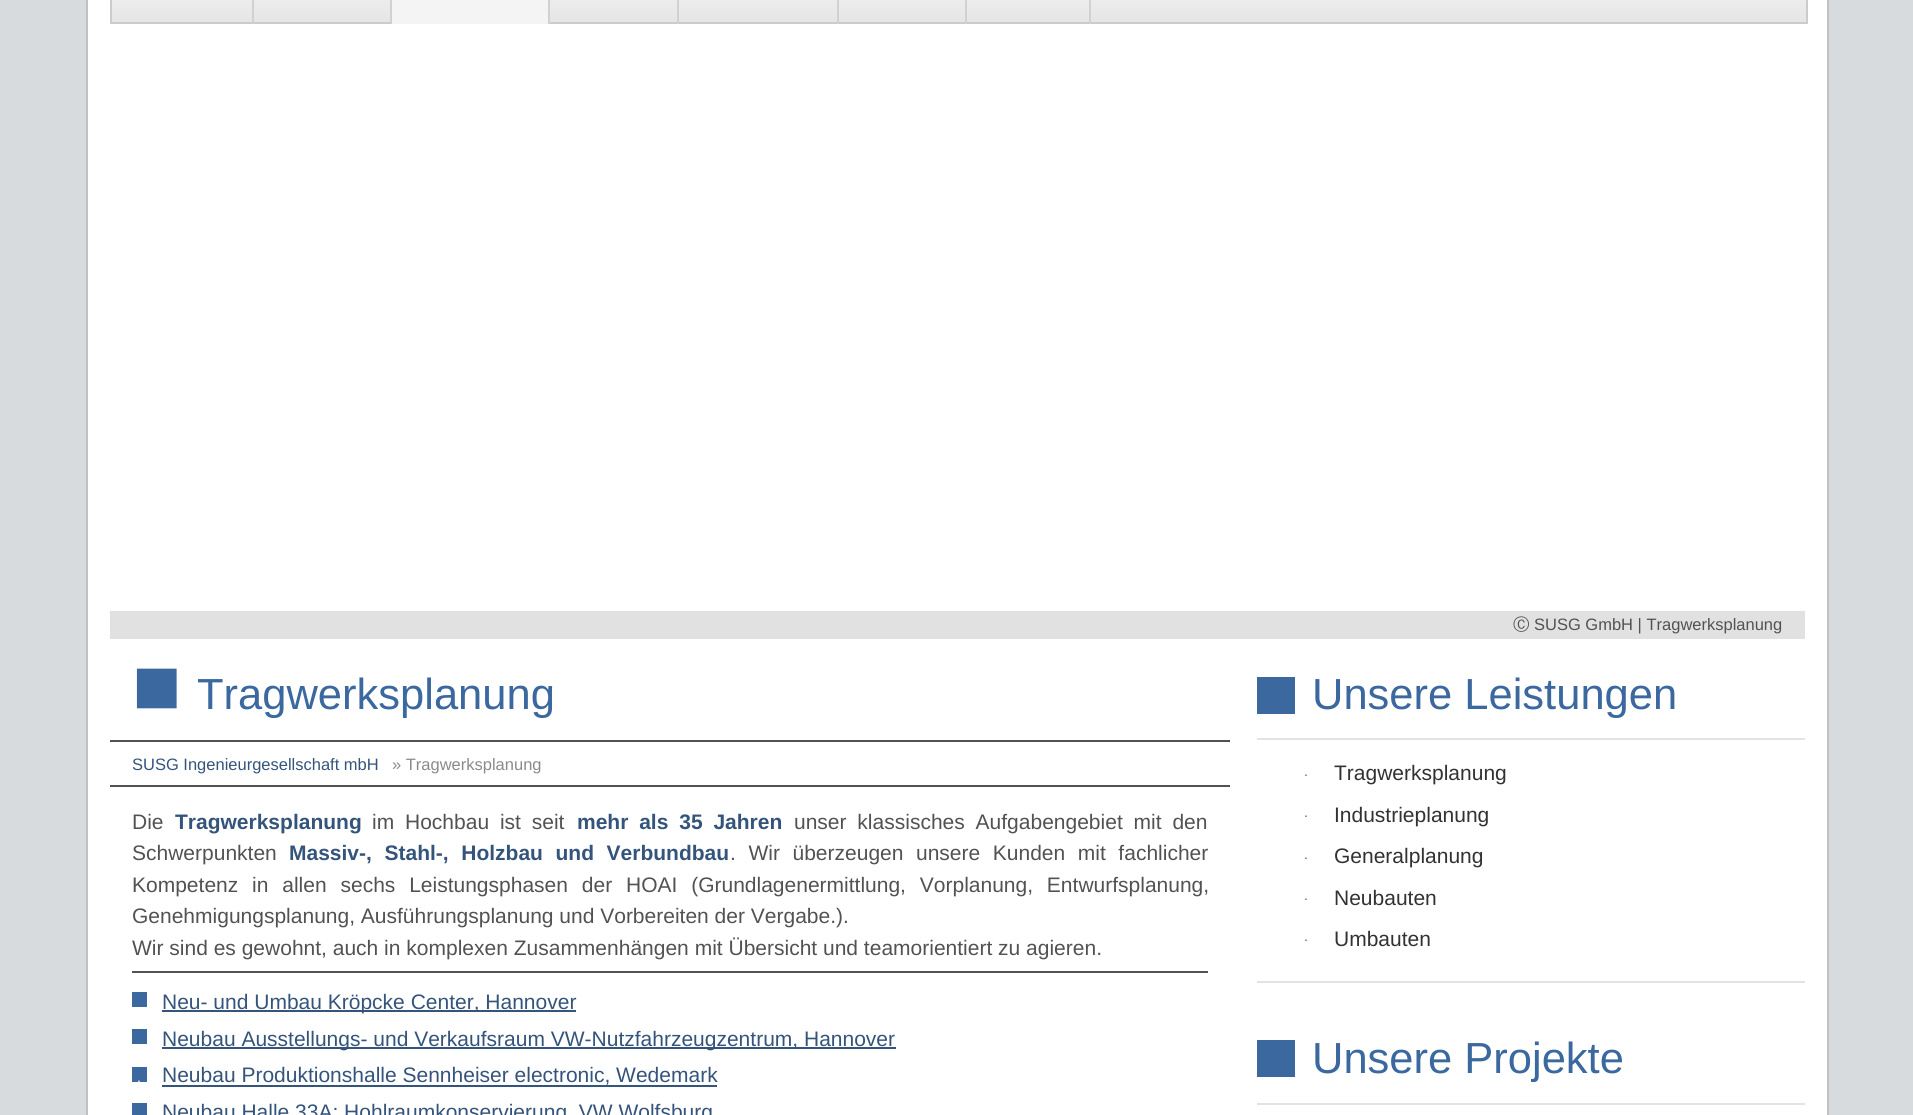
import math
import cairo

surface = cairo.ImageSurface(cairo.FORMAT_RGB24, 1913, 1115)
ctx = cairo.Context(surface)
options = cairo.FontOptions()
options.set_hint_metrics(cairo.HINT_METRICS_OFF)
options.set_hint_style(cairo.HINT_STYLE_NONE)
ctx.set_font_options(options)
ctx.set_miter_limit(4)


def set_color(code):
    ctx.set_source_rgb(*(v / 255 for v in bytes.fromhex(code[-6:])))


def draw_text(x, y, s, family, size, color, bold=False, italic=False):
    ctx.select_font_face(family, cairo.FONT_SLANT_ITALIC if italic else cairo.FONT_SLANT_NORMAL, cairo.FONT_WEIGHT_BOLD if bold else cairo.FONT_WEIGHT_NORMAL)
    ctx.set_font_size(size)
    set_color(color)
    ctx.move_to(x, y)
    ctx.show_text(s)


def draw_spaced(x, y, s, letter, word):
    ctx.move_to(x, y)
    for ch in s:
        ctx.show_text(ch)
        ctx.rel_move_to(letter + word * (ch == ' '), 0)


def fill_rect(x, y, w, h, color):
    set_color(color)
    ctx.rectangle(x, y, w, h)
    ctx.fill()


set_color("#d7dbdd")
ctx.paint()
set_color("#ffffff")
ctx.rectangle(87, -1, 1741, 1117)
ctx.fill_preserve()
set_color("#c2c2c2")
ctx.stroke()
gradient = cairo.LinearGradient(959, -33, 959, 23)
gradient.add_color_stop_rgba(0.01, 0.969, 0.969, 0.969, 1)
gradient.add_color_stop_rgba(1, 0.898, 0.898, 0.898, 1)
ctx.set_source(gradient)
ctx.rectangle(112, 0, 1694, 22)
ctx.fill()
ctx.rectangle(111, -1, 1696, 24)
set_color("#cccccc")
ctx.stroke()
fill_rect(252, 0, 2, 24, "#d1d1d1")
fill_rect(390, 0, 2, 24, "#d1d1d1")
fill_rect(392, 0, 156, 24, "#f4f4f4")
fill_rect(548, 0, 2, 24, "#d1d1d1")
fill_rect(677, 0, 2, 24, "#d1d1d1")
fill_rect(837, 0, 2, 24, "#d1d1d1")
fill_rect(965, 0, 2, 24, "#d1d1d1")
fill_rect(1089, 0, 2, 24, "#d1d1d1")
fill_rect(110, 611, 1695, 28, "#e1e1e1")
draw_text(1513, 630, "Ⓒ", "WenQuanYi Zen Hei Medium", 16.5, "#525252")
draw_text(1534, 630, "SUSG GmbH | Tragwerksplanung", "Liberation Sans", 16.5, "#525252")
draw_text(132, 713, "■", "Liberation Sans", 82, "#3a689f")
draw_text(197, 709, "Tragwerksplanung", "Liberation Sans", 43.5, "#3a689f")
fill_rect(110, 740, 1120, 2, "#525252")
draw_text(132, 770, "SUSG Ingenieurgesellschaft mbH", "Liberation Sans", 16.5, "#34547b")
draw_text(392, 770, "» Tragwerksplanung", "Liberation Sans", 16.5, "#8a8a8a")
fill_rect(110, 785, 1120, 2, "#525252")
draw_text(132, 829, "Die", "Liberation Sans", 21, "#525252")
draw_text(175, 829, "Tragwerksplanung", "Liberation Sans", 21, "#34547b", bold=True)
ctx.select_font_face("Liberation Sans")
set_color("#525252")
draw_spaced(372, 829, "im Hochbau ist seit", 0, 5)
ctx.select_font_face("Liberation Sans", cairo.FONT_SLANT_NORMAL, cairo.FONT_WEIGHT_BOLD)
set_color("#34547b")
draw_spaced(577, 829, "mehr als 35 Jahren", 0, 5)
ctx.select_font_face("Liberation Sans")
set_color("#525252")
draw_spaced(794, 829, "unser klassisches Aufgabengebiet mit den", 0, 5)
draw_text(132, 860, "Schwerpunkten", "Liberation Sans", 21, "#525252")
ctx.select_font_face("Liberation Sans", cairo.FONT_SLANT_NORMAL, cairo.FONT_WEIGHT_BOLD)
set_color("#34547b")
draw_spaced(289, 860, "Massiv-, Stahl-, Holzbau und Verbundbau", 0, 6.75)
ctx.select_font_face("Liberation Sans")
set_color("#525252")
draw_spaced(730, 860, ". Wir überzeugen unsere Kunden mit fachlicher", 0, 6.75)
draw_spaced(132, 892, "Kompetenz in allen sechs Leistungsphasen der HOAI (Grundlagenermittlung, Vorplanung, Entwurfsplanung,", 0, 8)
draw_text(132, 923, "Genehmigungsplanung, Ausführungsplanung und Vorbereiten der Vergabe.).", "Liberation Sans", 21, "#525252")
draw_text(132, 955, "Wir sind es gewohnt, auch in komplexen Zusammenhängen mit Übersicht und teamorientiert zu agieren.", "Liberation Sans", 21, "#525252")
fill_rect(132, 971, 1076, 2, "#525252")
fill_rect(132, 992, 15, 15, "#3a689f")
fill_rect(162, 1010, 414, 2, "#34547b")
draw_text(162, 1009, "Neu- und Umbau Kröpcke Center, Hannover", "Liberation Sans", 21, "#34547b")
fill_rect(132, 1029, 15, 15, "#3a689f")
fill_rect(162, 1047, 734, 2, "#34547b")
draw_text(162, 1046, "Neubau Ausstellungs- und Verkaufsraum VW-Nutzfahrzeugzentrum, Hannover", "Liberation Sans", 21, "#34547b")
fill_rect(132, 1067, 15, 15, "#3a689f")
draw_text(137, 1082, ".", "Liberation Sans", 14, "#ffffff")
draw_text(162, 1082, "Neubau Produktionshalle Sennheiser electronic, Wedemark", "Liberation Sans", 21, "#34547b")
fill_rect(162, 1085, 555, 2, "#34547b")
fill_rect(132, 1103, 15, 12, "#3a689f")
draw_text(162, 1119, "Neubau Halle 33A: Hohlraumkonservierung, VW Wolfsburg", "Liberation Sans", 21, "#34547b")
fill_rect(1257, 738, 548, 2, "#e3e3e3")
fill_rect(1257, 677, 38, 37, "#3a689f")
draw_text(1312, 709, "Unsere Leistungen", "Liberation Sans", 43.5, "#3a689f")
fill_rect(1257, 981, 548, 2, "#e3e3e3")
draw_text(1304, 776, ".", "Liberation Sans", 14, "#3a689f")
draw_text(1334, 780, "Tragwerksplanung", "Liberation Sans", 21, "#323232")
draw_text(1304, 817, ".", "Liberation Sans", 14, "#3a689f")
draw_text(1334, 822, "Industrieplanung", "Liberation Sans", 21, "#323232")
draw_text(1304, 859, ".", "Liberation Sans", 14, "#3a689f")
draw_text(1334, 863, "Generalplanung", "Liberation Sans", 21, "#323232")
draw_text(1304, 900, ".", "Liberation Sans", 14, "#3a689f")
draw_text(1334, 905, "Neubauten", "Liberation Sans", 21, "#323232")
draw_text(1304, 941, ".", "Liberation Sans", 14, "#3a689f")
draw_text(1334, 946, "Umbauten", "Liberation Sans", 21, "#323232")
fill_rect(1257, 1103, 548, 2, "#e3e3e3")
fill_rect(1257, 1040, 38, 37, "#3a689f")
draw_text(1312, 1073, "Unsere Projekte", "Liberation Sans", 43.5, "#3a689f")
surface.write_to_png("output.png")
